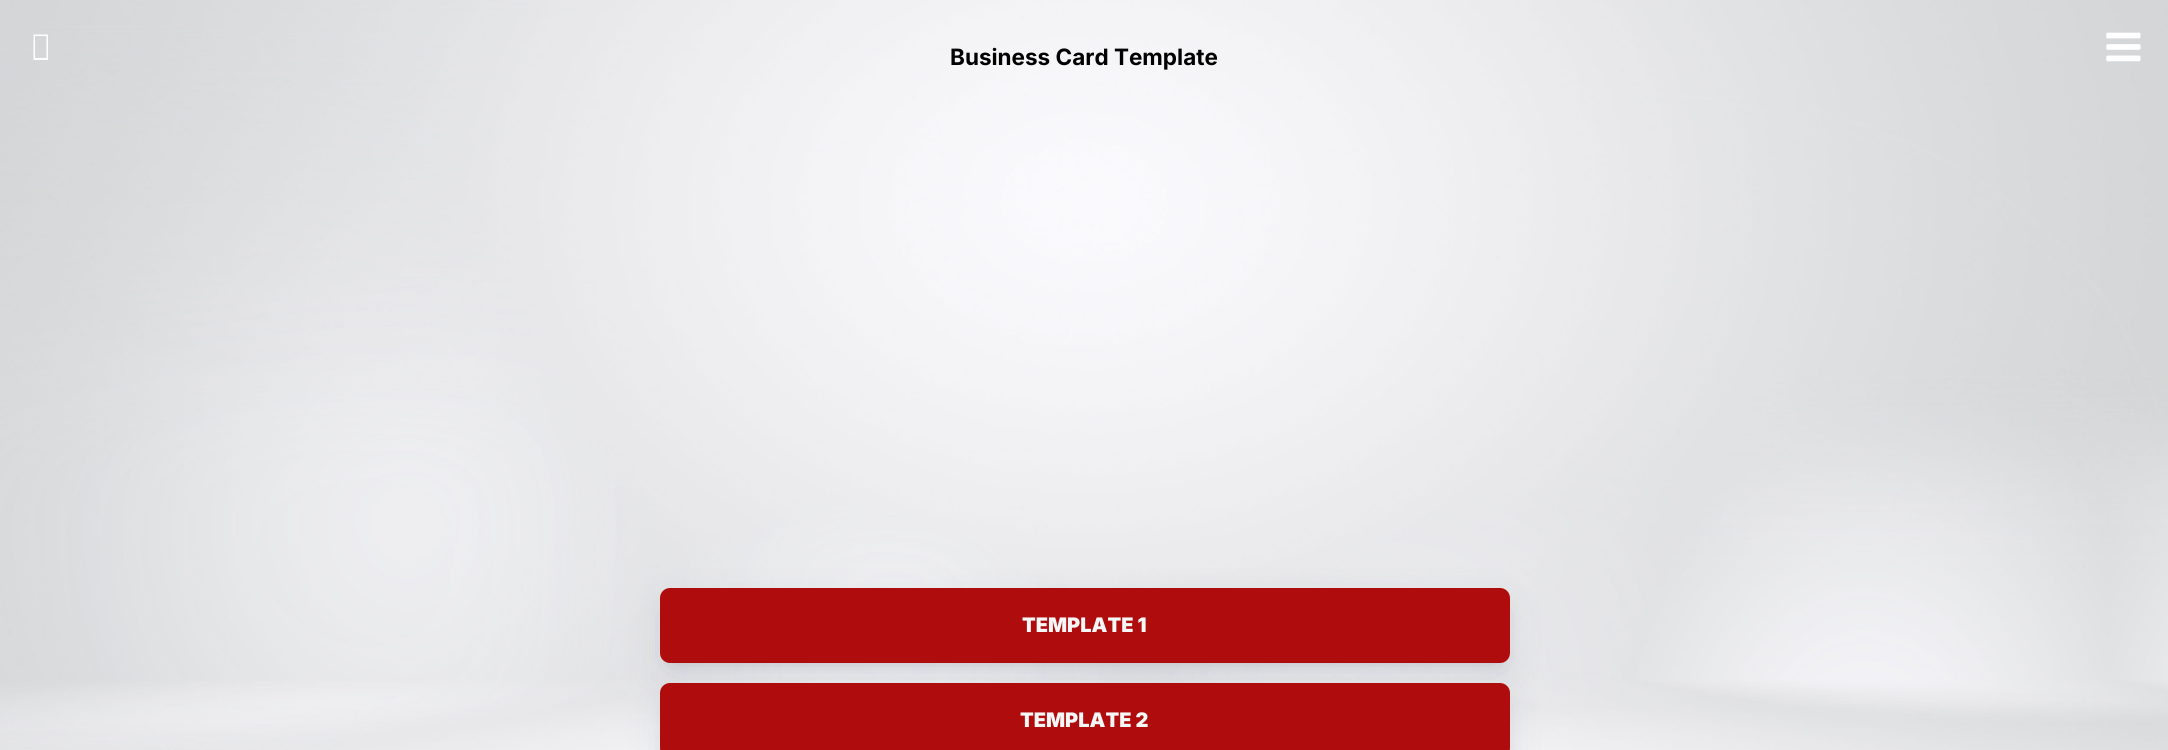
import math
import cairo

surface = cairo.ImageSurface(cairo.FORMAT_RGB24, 2168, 750)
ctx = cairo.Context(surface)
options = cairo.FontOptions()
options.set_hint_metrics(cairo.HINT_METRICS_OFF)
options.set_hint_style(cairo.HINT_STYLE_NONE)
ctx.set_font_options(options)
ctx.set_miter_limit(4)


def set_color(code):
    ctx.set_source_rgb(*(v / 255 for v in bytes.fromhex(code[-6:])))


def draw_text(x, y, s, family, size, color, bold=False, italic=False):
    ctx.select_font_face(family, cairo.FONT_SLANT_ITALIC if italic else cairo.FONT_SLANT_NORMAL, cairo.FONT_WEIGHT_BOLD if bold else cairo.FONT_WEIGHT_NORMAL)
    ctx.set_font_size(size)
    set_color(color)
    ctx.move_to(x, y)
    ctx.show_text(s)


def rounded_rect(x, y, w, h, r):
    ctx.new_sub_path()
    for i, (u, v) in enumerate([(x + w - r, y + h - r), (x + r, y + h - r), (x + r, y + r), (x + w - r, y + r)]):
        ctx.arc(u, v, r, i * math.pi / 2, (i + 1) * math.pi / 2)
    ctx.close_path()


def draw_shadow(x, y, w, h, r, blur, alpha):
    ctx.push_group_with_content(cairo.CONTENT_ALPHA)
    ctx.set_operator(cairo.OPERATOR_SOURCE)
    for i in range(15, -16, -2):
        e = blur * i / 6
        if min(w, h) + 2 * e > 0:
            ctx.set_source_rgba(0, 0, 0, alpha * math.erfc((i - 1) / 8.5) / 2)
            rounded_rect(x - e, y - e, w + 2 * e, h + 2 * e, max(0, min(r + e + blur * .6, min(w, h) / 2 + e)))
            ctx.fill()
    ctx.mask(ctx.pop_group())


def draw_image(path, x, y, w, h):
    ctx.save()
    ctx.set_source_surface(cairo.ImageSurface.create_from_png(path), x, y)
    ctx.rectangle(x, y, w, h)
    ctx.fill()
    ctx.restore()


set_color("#ffffff")
ctx.paint()
draw_image("assets/img1.png", 0, 0, 2168, 750)
set_color("#ffffff")
ctx.new_path()
ctx.move_to(33.5, 60)
ctx.line_to(33.5, 34.5)
ctx.line_to(48, 34.5)
ctx.line_to(48, 60)
ctx.close_path()
ctx.move_to(35, 58)
ctx.line_to(46.5, 58)
ctx.line_to(46.5, 36)
ctx.line_to(35, 36)
ctx.close_path()
ctx.fill()
draw_text(950, 65, "Business Card Template", "Inter", 22.5, "#000000", bold=True)
set_color("#18274b")
draw_shadow(665, 605, 840, 65, 5, 20, 0.1)
draw_shadow(668, 603, 835, 60, 2.5, 9, 0.12)
set_color("#af0d0d")
rounded_rect(660, 588, 850, 75, 10)
ctx.fill()
draw_text(1022, 632, "TEMPLATE 1", "Inter Black", 20, "#f7f7f7")
set_color("#18274b")
draw_shadow(665, 700, 840, 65, 5, 20, 0.1)
draw_shadow(668, 698, 835, 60, 2.5, 9, 0.12)
set_color("#af0d0d")
rounded_rect(660, 683, 850, 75, 10)
ctx.fill()
draw_text(1020, 727, "TEMPLATE 2", "Inter Black", 20, "#f7f7f7")
draw_image("assets/img2.png", 2106, 32, 35, 30)
surface.write_to_png("output.png")
